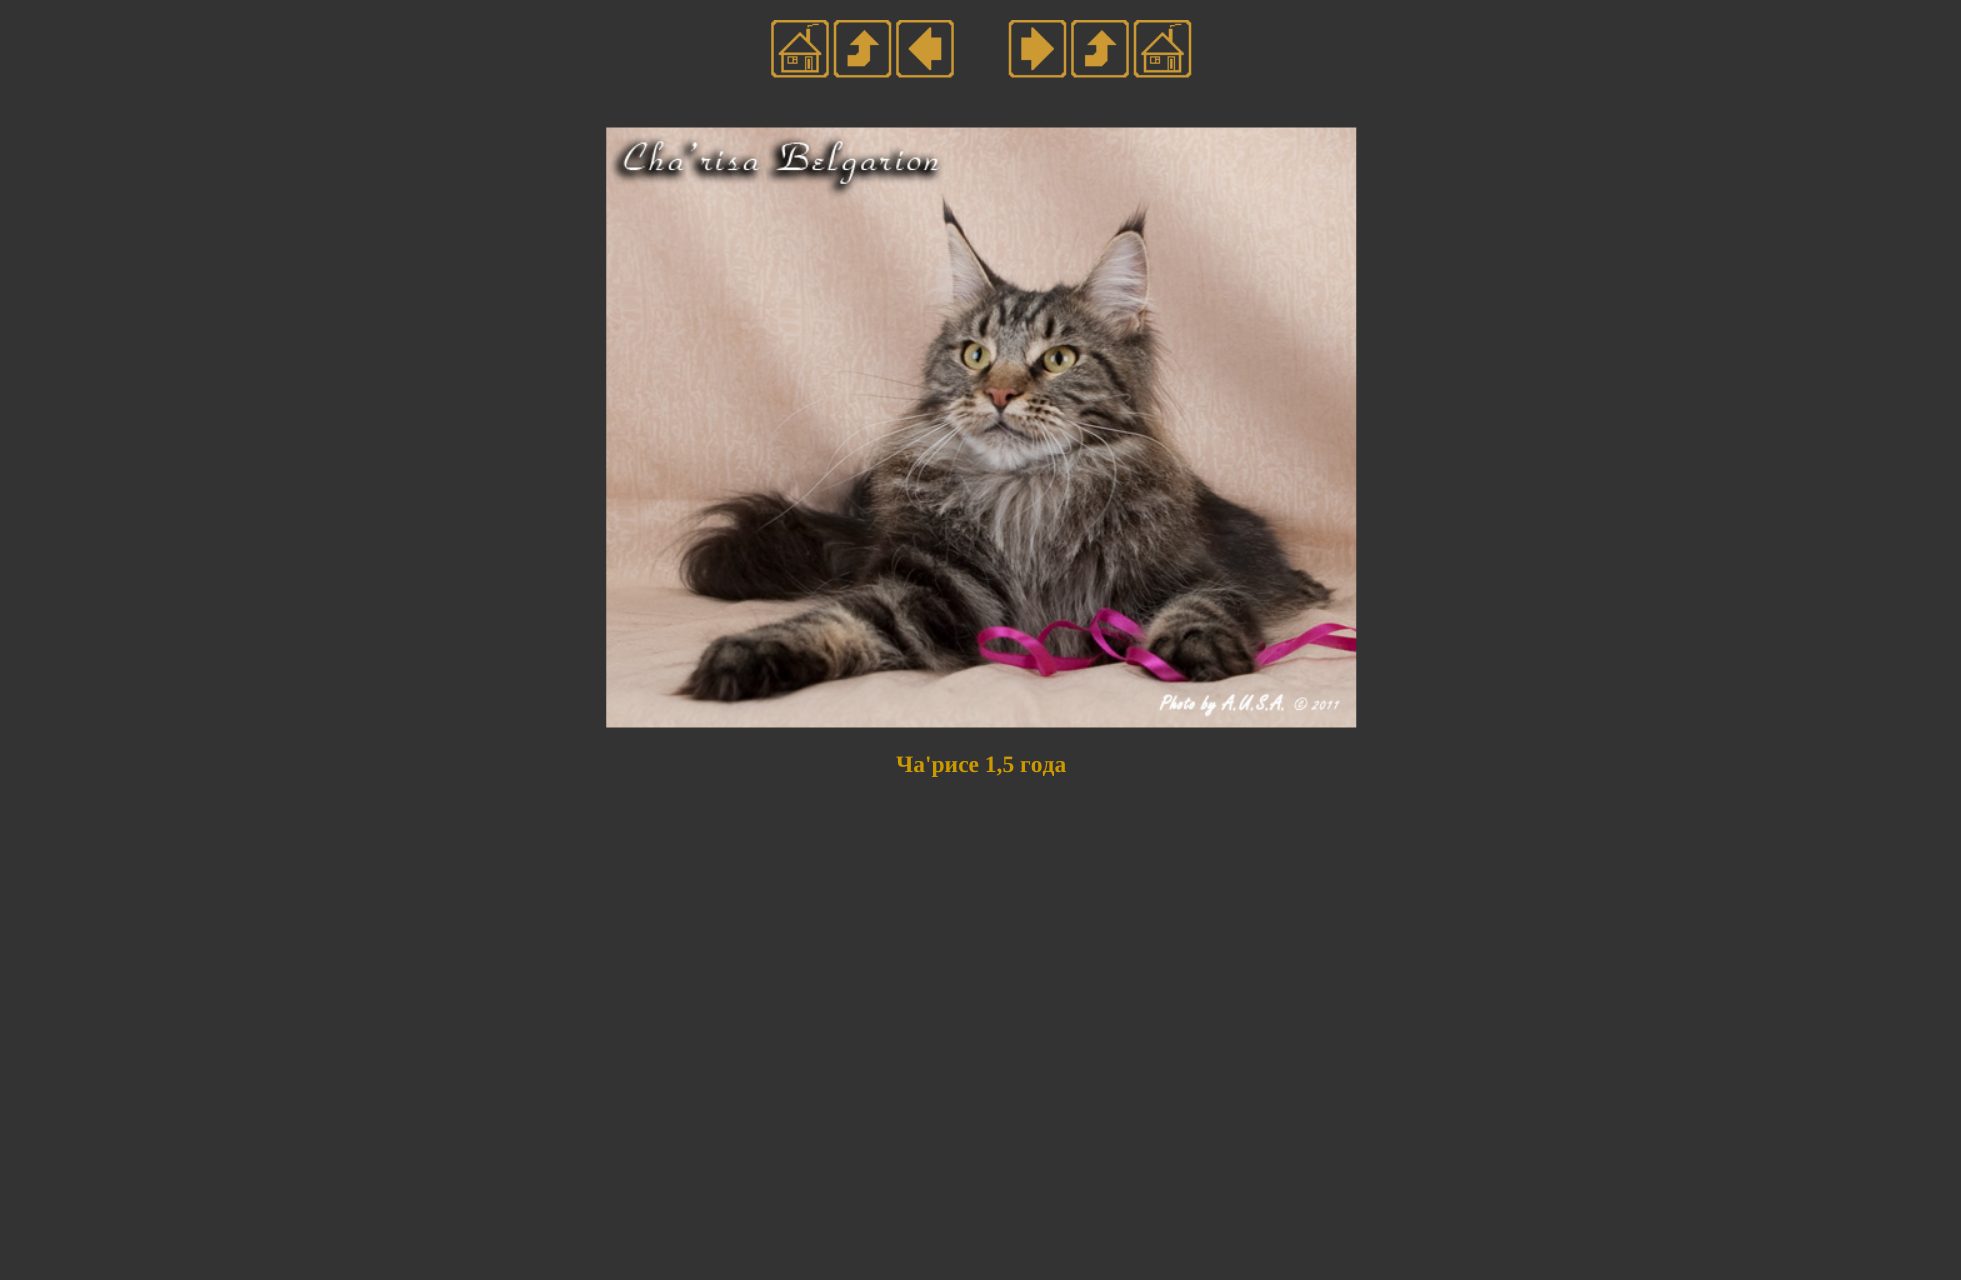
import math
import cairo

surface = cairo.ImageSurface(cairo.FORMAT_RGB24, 1961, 1280)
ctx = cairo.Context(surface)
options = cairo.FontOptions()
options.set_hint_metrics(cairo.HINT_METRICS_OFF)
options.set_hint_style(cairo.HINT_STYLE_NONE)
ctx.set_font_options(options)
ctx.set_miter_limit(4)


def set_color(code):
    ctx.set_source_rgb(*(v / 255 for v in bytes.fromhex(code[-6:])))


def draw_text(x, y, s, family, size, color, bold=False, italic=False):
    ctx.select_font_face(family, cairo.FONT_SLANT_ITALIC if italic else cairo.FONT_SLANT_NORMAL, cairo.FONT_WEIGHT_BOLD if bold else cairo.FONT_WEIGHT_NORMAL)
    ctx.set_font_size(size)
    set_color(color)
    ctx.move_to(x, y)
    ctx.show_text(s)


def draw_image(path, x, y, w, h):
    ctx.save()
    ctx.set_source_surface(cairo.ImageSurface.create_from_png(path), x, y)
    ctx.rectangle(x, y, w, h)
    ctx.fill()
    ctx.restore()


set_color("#333333")
ctx.paint()
draw_image("assets/img1.png", 771, 20, 58, 58)
draw_image("assets/img2.png", 833, 20, 59, 58)
draw_image("assets/img3.png", 896, 20, 58, 58)
draw_image("assets/img4.png", 1008, 20, 59, 58)
draw_image("assets/img5.png", 1071, 20, 58, 58)
draw_image("assets/img6.png", 1133, 20, 59, 58)
draw_image("assets/img7.png", 606, 127, 751, 601)
draw_text(896, 772, "Ча'рисе 1,5 года", "Liberation Serif", 23.5, "#cc9900", bold=True)
surface.write_to_png("output.png")
